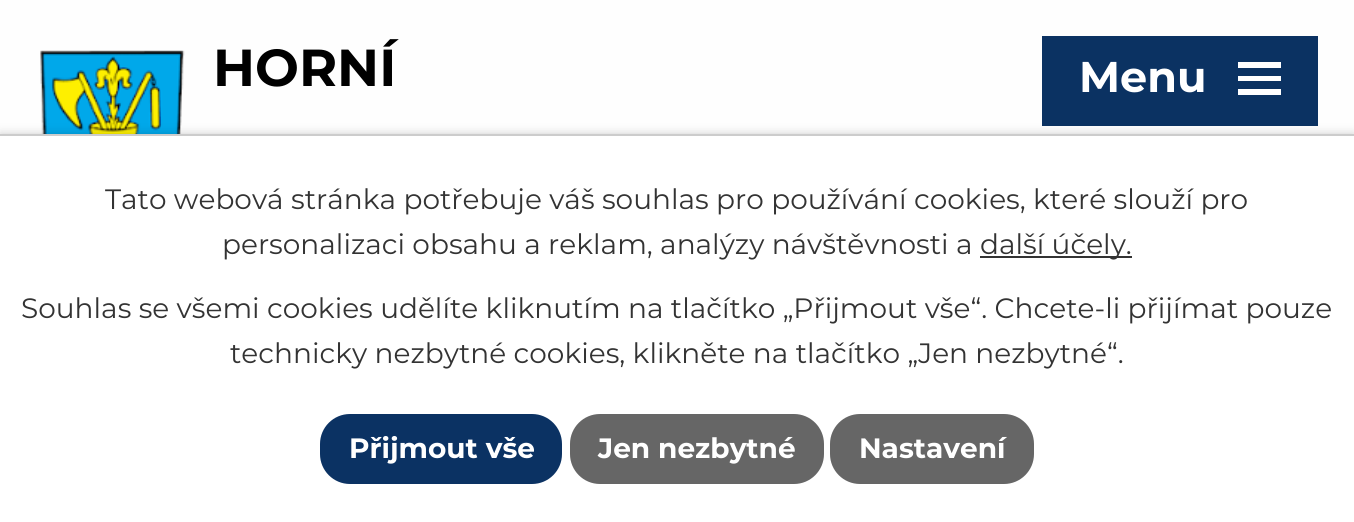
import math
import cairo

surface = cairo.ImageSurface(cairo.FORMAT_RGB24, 1354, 522)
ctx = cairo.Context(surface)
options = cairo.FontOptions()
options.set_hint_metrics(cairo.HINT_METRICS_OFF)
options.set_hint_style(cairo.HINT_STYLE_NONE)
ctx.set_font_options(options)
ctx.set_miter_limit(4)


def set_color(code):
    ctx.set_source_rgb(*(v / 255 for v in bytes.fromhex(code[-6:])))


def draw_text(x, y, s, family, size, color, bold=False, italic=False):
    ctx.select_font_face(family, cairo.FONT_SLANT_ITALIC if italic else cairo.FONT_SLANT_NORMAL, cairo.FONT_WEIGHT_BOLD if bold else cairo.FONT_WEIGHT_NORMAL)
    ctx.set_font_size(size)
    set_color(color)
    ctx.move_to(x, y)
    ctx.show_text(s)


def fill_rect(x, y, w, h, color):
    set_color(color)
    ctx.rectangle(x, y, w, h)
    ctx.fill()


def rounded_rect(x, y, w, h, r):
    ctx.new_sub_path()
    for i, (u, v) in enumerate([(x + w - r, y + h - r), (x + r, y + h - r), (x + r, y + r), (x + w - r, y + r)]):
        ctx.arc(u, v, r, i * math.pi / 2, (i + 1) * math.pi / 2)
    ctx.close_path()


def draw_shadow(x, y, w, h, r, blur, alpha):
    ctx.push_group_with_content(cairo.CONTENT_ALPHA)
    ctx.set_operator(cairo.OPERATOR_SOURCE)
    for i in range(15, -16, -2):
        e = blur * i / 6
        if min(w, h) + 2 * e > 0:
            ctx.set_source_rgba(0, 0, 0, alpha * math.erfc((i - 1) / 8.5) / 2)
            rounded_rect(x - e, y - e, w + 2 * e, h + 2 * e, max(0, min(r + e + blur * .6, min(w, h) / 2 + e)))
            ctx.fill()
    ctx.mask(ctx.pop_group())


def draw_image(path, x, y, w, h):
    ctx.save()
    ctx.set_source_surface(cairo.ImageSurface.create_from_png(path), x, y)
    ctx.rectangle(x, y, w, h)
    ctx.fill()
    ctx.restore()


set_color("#fefefe")
ctx.paint()
draw_image("assets/img1.png", 40, 50, 145, 84)
draw_text(213, 86, "HORNÍ", "Montserrat", 52, "#000000", bold=True)
fill_rect(1042, 36, 276, 90, "#0b3262")
draw_text(1079, 92, "Menu", "Montserrat", 43, "#ffffff", bold=True)
ctx.new_path()
ctx.move_to(1238, 95)
ctx.line_to(1238, 89)
ctx.line_to(1281, 89)
ctx.line_to(1281, 95)
ctx.close_path()
ctx.move_to(1238, 62)
ctx.line_to(1281, 62)
ctx.line_to(1281, 68)
ctx.line_to(1238, 68)
ctx.close_path()
ctx.move_to(1238, 81)
ctx.line_to(1238, 76)
ctx.line_to(1281, 76)
ctx.line_to(1281, 81)
ctx.close_path()
ctx.fill()
set_color("#000000")
draw_shadow(0, 134, 1354, 388, 0, 5, 0.2)
fill_rect(0, 136, 1354, 386, "#ffffff")
fill_rect(0, 134, 1354, 2, "#cccccc")
draw_text(105, 209, "Tato webová stránka potřebuje váš souhlas pro používání cookies, které slouží pro", "Montserrat", 28, "#333333")
draw_text(222, 254, "personalizaci obsahu a reklam, analýzy návštěvnosti a", "Montserrat", 28, "#333333")
fill_rect(980, 256, 152, 2, "#333333")
draw_text(980, 254, "další účely.", "Montserrat", 28, "#333333")
draw_text(21, 318, "Souhlas se všemi cookies udělíte kliknutím na tlačítko „Přijmout vše“. Chcete-li přijímat pouze", "Montserrat", 28, "#333333")
draw_text(230, 363, "technicky nezbytné cookies, klikněte na tlačítko „Jen nezbytné“.", "Montserrat", 28, "#333333")
set_color("#0b3263")
rounded_rect(320, 414, 242, 70, 30)
ctx.fill()
draw_text(349, 458, "Přijmout vše", "Montserrat", 28, "#ffffff", bold=True)
set_color("#666666")
rounded_rect(570, 414, 254, 70, 30)
ctx.fill()
draw_text(598, 458, "Jen nezbytné", "Montserrat", 28, "#ffffff", bold=True)
set_color("#666666")
rounded_rect(830, 414, 204, 70, 30)
ctx.fill()
draw_text(859, 458, "Nastavení", "Montserrat", 28, "#ffffff", bold=True)
surface.write_to_png("output.png")
